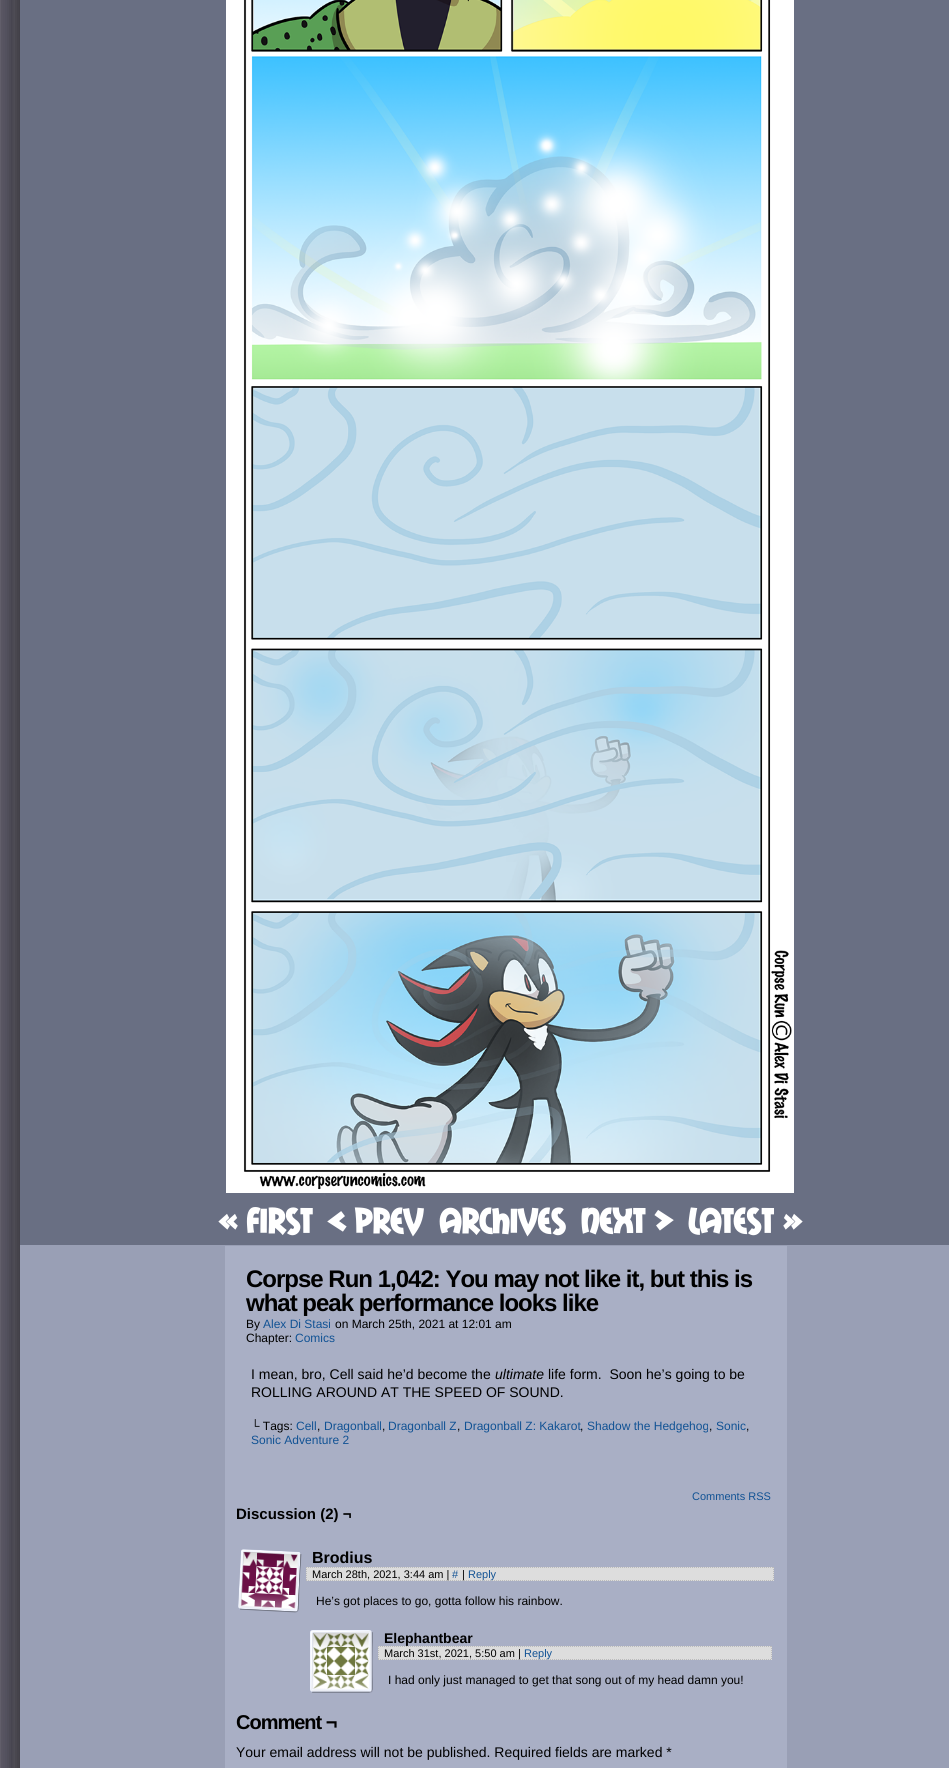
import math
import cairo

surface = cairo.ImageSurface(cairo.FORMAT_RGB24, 949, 1768)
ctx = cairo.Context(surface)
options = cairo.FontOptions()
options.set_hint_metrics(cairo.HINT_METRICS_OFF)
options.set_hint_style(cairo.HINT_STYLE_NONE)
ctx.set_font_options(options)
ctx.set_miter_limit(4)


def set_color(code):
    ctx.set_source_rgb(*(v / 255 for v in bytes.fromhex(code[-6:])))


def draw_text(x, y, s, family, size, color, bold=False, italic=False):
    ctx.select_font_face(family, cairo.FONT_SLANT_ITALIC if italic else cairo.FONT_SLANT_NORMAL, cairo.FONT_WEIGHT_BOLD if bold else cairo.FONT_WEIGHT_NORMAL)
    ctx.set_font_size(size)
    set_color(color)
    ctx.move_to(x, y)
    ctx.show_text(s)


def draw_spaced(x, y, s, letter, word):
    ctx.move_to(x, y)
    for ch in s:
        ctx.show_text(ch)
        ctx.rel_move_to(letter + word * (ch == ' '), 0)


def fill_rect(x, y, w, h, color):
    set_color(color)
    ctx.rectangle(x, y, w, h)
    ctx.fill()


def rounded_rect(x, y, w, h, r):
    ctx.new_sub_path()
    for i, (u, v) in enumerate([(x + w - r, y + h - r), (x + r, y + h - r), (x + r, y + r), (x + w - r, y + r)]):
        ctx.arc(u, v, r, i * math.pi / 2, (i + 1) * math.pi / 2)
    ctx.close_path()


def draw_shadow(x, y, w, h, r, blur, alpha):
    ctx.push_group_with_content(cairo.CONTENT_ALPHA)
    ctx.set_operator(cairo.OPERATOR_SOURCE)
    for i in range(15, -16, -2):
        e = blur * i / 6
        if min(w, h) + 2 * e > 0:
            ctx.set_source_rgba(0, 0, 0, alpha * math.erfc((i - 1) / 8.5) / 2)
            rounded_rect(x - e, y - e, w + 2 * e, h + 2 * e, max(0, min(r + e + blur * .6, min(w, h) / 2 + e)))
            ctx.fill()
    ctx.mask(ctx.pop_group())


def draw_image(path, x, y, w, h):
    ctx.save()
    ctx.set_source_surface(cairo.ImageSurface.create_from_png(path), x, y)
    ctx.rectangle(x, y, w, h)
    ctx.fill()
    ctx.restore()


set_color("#ffffff")
ctx.paint()
draw_image("assets/img1.png", 0, 0, 20, 1768)
set_color("#000000")
draw_shadow(12, -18, 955, 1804, 0, 6, 0.4)
fill_rect(20, 0, 929, 1245, "#696f83")
draw_image("assets/img2.png", 226, 0, 568, 1193)
draw_text(218, 1233, "« First", "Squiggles", 34, "#ffffff", bold=True)
draw_text(328, 1233, "< Prev", "Squiggles", 34, "#ffffff", bold=True)
draw_text(439, 1233, "Archives", "Squiggles", 34, "#ffffff", bold=True)
draw_text(581, 1233, "Next >", "Squiggles", 34, "#ffffff", bold=True)
draw_text(688, 1233, "Latest »", "Squiggles", 34, "#ffffff", bold=True)
fill_rect(20, 1245, 929, 523, "#999fb5")
fill_rect(225, 1246, 562, 522, "#a9afc5")
ctx.select_font_face("Liberation Sans", cairo.FONT_SLANT_NORMAL, cairo.FONT_WEIGHT_BOLD)
ctx.set_font_size(24)
set_color("#000000")
draw_spaced(246, 1287, "Corpse Run 1,042: You may not like it, but this is", -1, 0)
draw_spaced(246, 1311, "what peak performance looks like", -1, 0)
draw_text(246, 1328, "By", "Liberation Sans", 12, "#000000")
draw_text(263, 1328, "Alex Di Stasi", "Liberation Sans", 12, "#115294")
draw_text(335, 1328, "on March 25th, 2021 at 12:01 am", "Liberation Sans", 12, "#000000")
draw_text(246, 1342, "Chapter:", "Liberation Sans", 12, "#000000")
draw_text(295, 1342, "Comics", "Liberation Sans", 12, "#115294")
draw_text(251, 1379, "I mean, bro, Cell said he’d become the", "Liberation Sans", 14, "#000000")
draw_text(495, 1379, "ultimate", "Liberation Sans", 14, "#000000", italic=True)
draw_text(548, 1379, "life form.  Soon he’s going to be", "Liberation Sans", 14, "#000000")
draw_text(251, 1397, "ROLLING AROUND AT THE SPEED OF SOUND.", "Liberation Sans", 14, "#000000")
draw_text(251, 1430, "└ Tags:", "Liberation Sans", 12, "#000000")
draw_text(296, 1430, "Cell", "Liberation Sans", 12, "#115294")
draw_text(317, 1430, ",", "Liberation Sans", 12, "#000000")
draw_text(324, 1430, "Dragonball", "Liberation Sans", 12, "#115294")
draw_text(382, 1430, ",", "Liberation Sans", 12, "#000000")
draw_text(388, 1430, "Dragonball Z", "Liberation Sans", 12, "#115294")
draw_text(457, 1430, ",", "Liberation Sans", 12, "#000000")
draw_text(464, 1430, "Dragonball Z: Kakarot", "Liberation Sans", 12, "#115294")
draw_text(580, 1430, ",", "Liberation Sans", 12, "#000000")
draw_text(587, 1430, "Shadow the Hedgehog", "Liberation Sans", 12, "#115294")
draw_text(709, 1430, ",", "Liberation Sans", 12, "#000000")
draw_text(716, 1430, "Sonic", "Liberation Sans", 12, "#115294")
draw_text(746, 1430, ",", "Liberation Sans", 12, "#000000")
draw_text(251, 1444, "Sonic Adventure 2", "Liberation Sans", 12, "#115294")
draw_text(692, 1500, "Comments RSS", "Liberation Sans", 11, "#115294")
draw_text(236, 1519, "Discussion (2) ¬", "Liberation Sans", 15, "#000000", bold=True)
draw_image("assets/img3.png", 238, 1549, 64, 64)
draw_text(312, 1563, "Brodius", "Liberation Sans", 16, "#000000", bold=True)
fill_rect(306, 1567, 468, 14, "#dddddd")
ctx.new_path()
ctx.move_to(306, 1567.5)
ctx.line_to(774, 1567.5)
set_color("#bbbbbb")
ctx.set_line_width(1)
ctx.set_dash([1, 1])
ctx.stroke()
ctx.new_path()
ctx.move_to(773.5, 1567)
ctx.line_to(773.5, 1581)
ctx.stroke()
ctx.new_path()
ctx.move_to(306, 1580.5)
ctx.line_to(774, 1580.5)
ctx.stroke()
ctx.new_path()
ctx.move_to(306.5, 1567)
ctx.line_to(306.5, 1581)
ctx.stroke()
draw_text(312, 1578, "March 28th, 2021, 3:44 am |", "Liberation Sans", 11, "#000000")
draw_text(452, 1578, "#", "Liberation Sans", 11, "#115294")
draw_text(462, 1578, "|", "Liberation Sans", 11, "#000000")
draw_text(468, 1578, "Reply", "Liberation Sans", 11, "#115294")
draw_text(316, 1605, "He’s got places to go, gotta follow his rainbow.", "Liberation Sans", 12, "#000000")
draw_image("assets/img4.png", 310, 1630, 63, 63)
draw_text(384, 1643, "Elephantbear", "Liberation Sans", 14, "#000000", bold=True)
fill_rect(378, 1646, 394, 14, "#dddddd")
ctx.new_path()
ctx.move_to(378, 1646.5)
ctx.line_to(772, 1646.5)
set_color("#bbbbbb")
ctx.stroke()
ctx.new_path()
ctx.move_to(771.5, 1646)
ctx.line_to(771.5, 1660)
ctx.stroke()
ctx.new_path()
ctx.move_to(378, 1659.5)
ctx.line_to(772, 1659.5)
ctx.stroke()
ctx.new_path()
ctx.move_to(378.5, 1646)
ctx.line_to(378.5, 1660)
ctx.stroke()
draw_text(384, 1657, "March 31st, 2021, 5:50 am |", "Liberation Sans", 11, "#000000")
draw_text(524, 1657, "Reply", "Liberation Sans", 11, "#115294")
draw_text(388, 1684, "I had only just managed to get that song out of my head damn you!", "Liberation Sans", 12, "#000000")
ctx.select_font_face("Liberation Sans", cairo.FONT_SLANT_NORMAL, cairo.FONT_WEIGHT_BOLD)
ctx.set_font_size(20)
draw_spaced(236, 1729, "Comment ¬", -1, 0)
draw_text(236, 1757, "Your email address will not be published. Required fields are marked *", "Liberation Sans", 14, "#000000")
surface.write_to_png("output.png")
